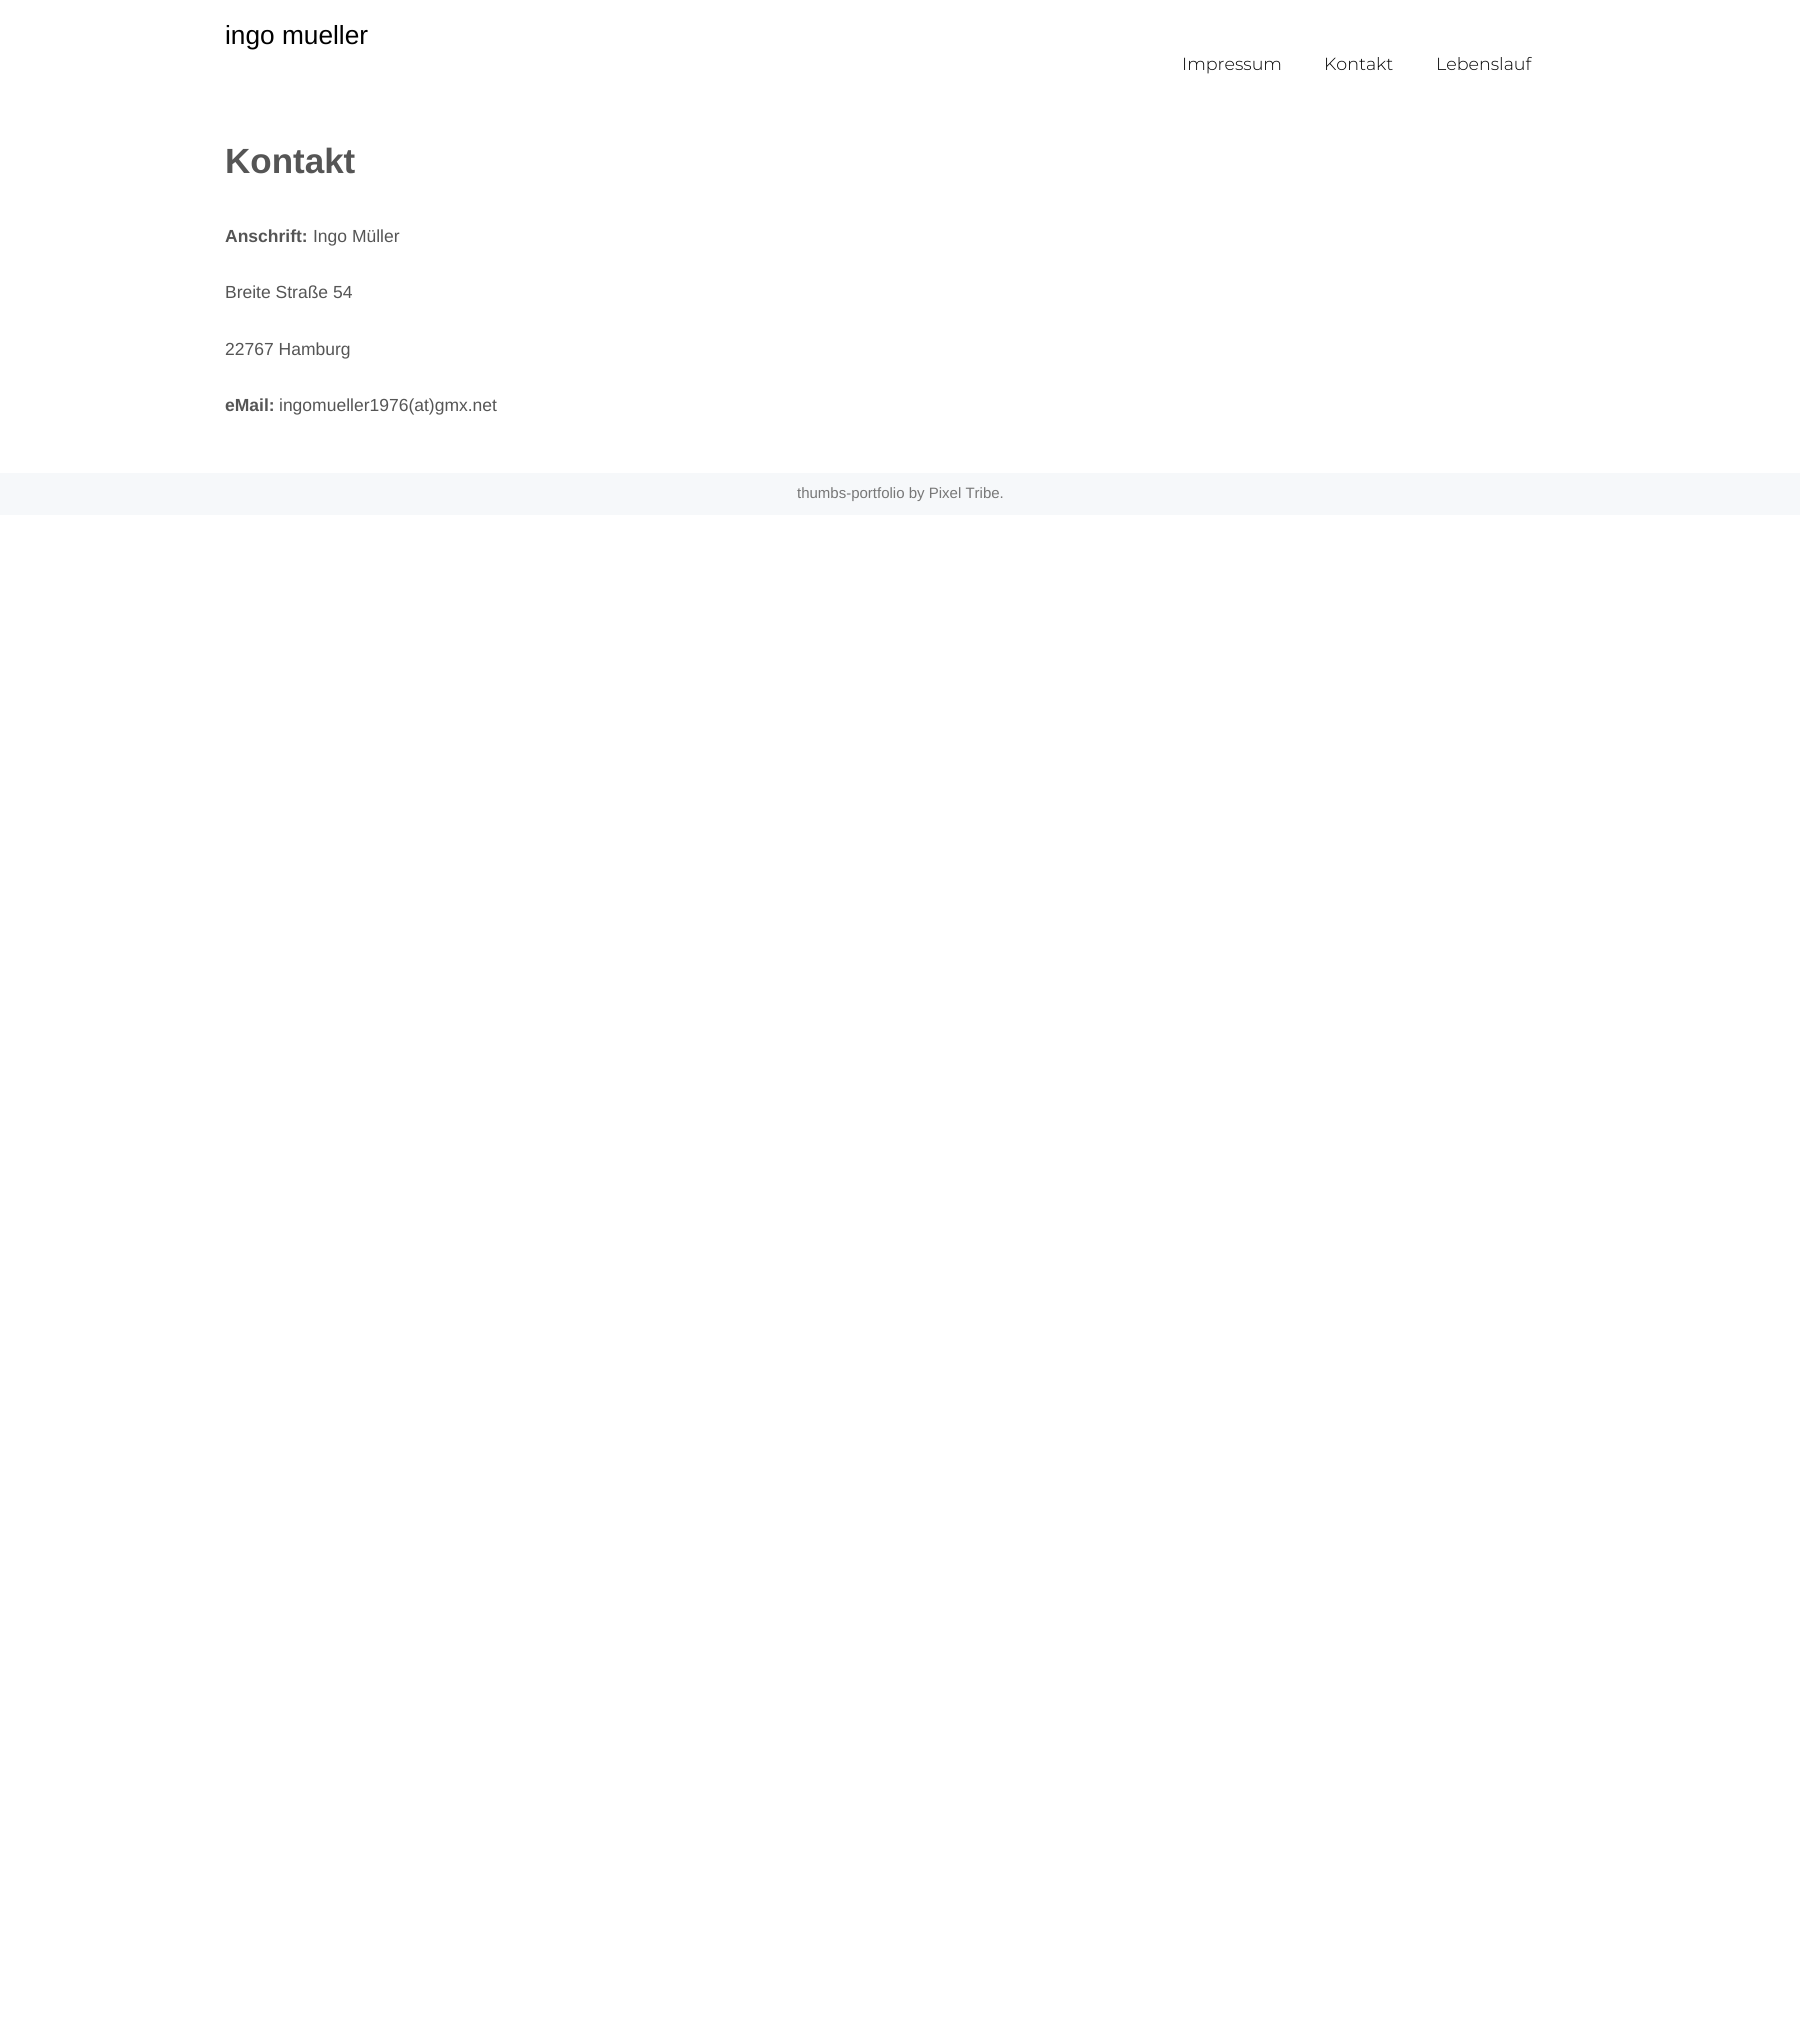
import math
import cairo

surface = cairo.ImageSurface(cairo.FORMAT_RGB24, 1800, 2025)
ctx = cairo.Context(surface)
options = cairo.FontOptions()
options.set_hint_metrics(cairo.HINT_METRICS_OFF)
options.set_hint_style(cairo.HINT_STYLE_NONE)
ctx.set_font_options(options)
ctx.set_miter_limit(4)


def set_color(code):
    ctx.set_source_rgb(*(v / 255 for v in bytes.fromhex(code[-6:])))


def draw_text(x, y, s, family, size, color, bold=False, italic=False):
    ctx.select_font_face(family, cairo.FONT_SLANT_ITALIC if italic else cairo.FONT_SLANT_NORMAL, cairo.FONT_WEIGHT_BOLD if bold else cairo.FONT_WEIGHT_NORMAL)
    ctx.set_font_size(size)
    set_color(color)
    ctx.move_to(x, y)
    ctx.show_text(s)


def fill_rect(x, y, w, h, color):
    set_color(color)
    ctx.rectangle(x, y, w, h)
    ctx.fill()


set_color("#ffffff")
ctx.paint()
draw_text(225, 44, "ingo mueller", "Liberation Sans", 26.25, "#000000")
draw_text(1182, 70, "Impressum", "Montserrat Light", 17.5, "#000000")
draw_text(1324, 70, "Kontakt", "Montserrat Light", 17.5, "#000000")
draw_text(1436, 70, "Lebenslauf", "Montserrat Light", 17.5, "#000000")
draw_text(225, 173, "Kontakt", "Liberation Sans", 35, "#555555", bold=True)
draw_text(225, 242, "Anschrift:", "Liberation Sans", 17.5, "#555555", bold=True)
draw_text(313, 242, "Ingo Müller", "Liberation Sans", 17.5, "#555555")
draw_text(225, 298, "Breite Straße 54", "Liberation Sans", 17.5, "#555555")
draw_text(225, 355, "22767 Hamburg", "Liberation Sans", 17.5, "#555555")
draw_text(225, 411, "eMail:", "Liberation Sans", 17.5, "#555555", bold=True)
draw_text(279, 411, "ingomueller1976(at)gmx.net", "Liberation Sans", 17.5, "#555555")
fill_rect(0, 473, 1800, 42, "#f6f8fa")
draw_text(797, 498, "thumbs-portfolio by Pixel Tribe.", "Liberation Sans", 15, "#777777")
surface.write_to_png("output.png")
